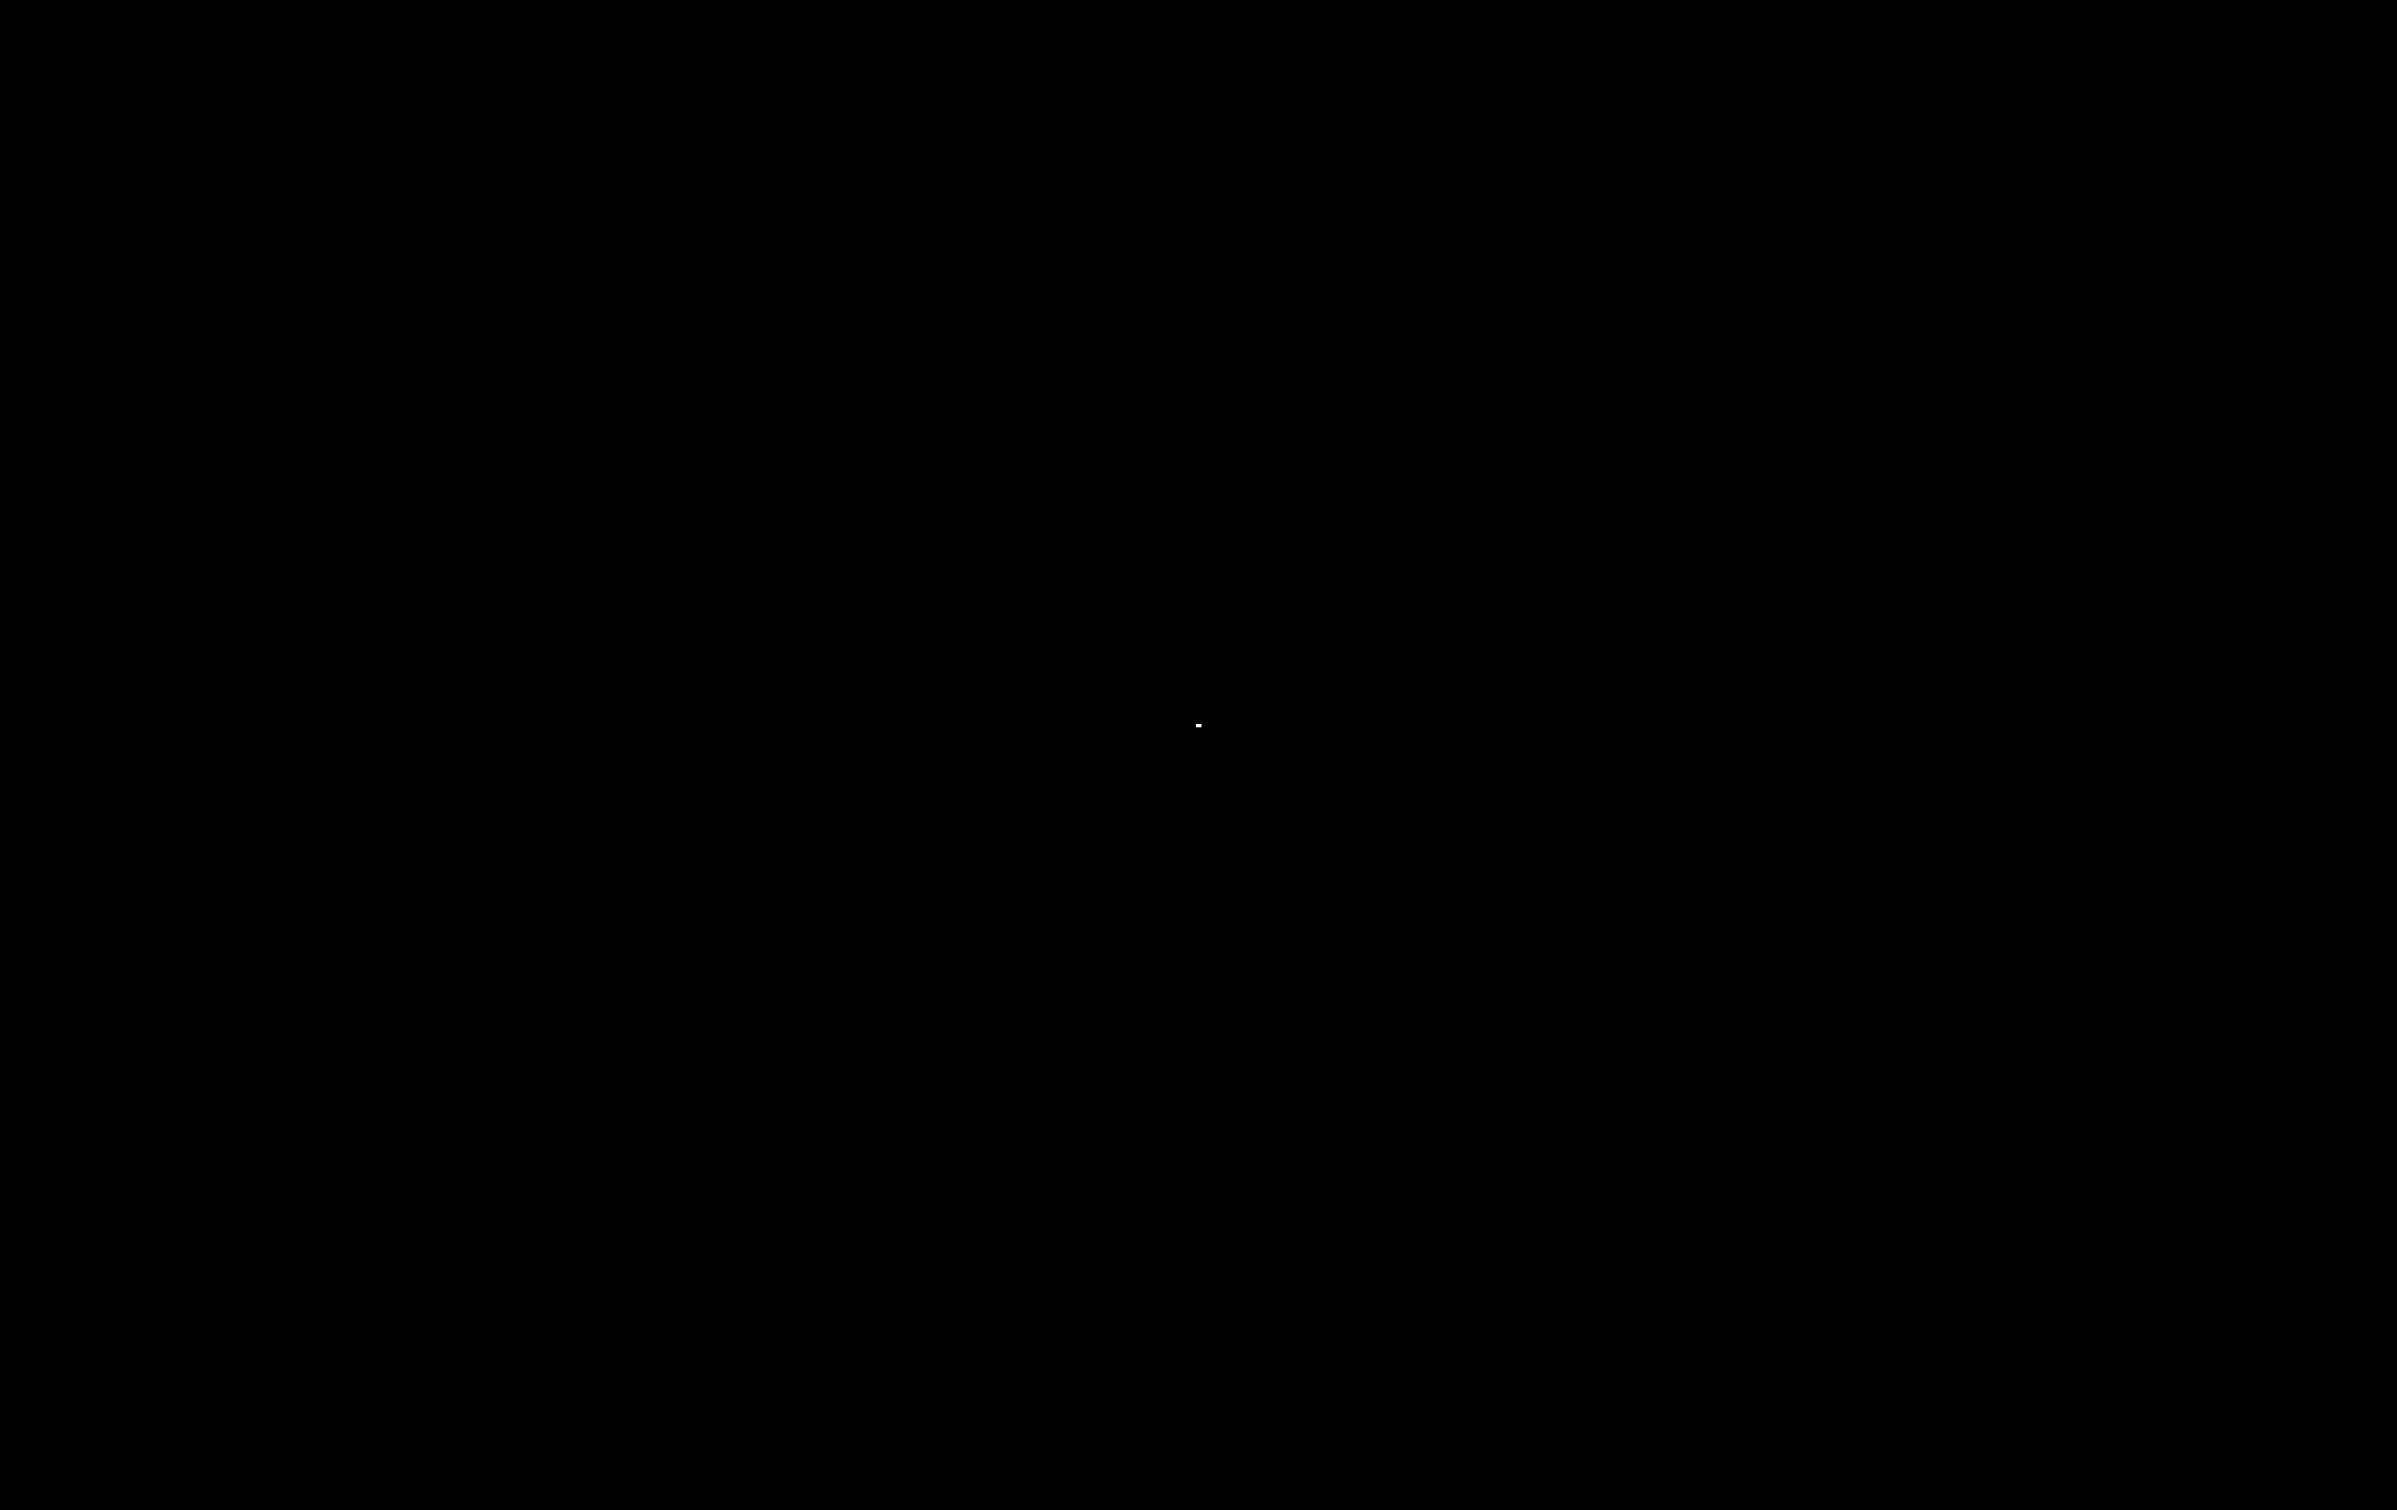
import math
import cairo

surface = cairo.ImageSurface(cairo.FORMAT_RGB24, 2397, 1510)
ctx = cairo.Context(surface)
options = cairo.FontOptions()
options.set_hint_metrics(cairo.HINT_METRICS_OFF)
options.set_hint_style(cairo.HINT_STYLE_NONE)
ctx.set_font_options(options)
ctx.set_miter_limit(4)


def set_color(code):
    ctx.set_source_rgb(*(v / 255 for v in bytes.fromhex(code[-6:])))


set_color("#000000")
ctx.paint()
ctx.save()
ctx.rectangle(1168, 724, 31, 62)
ctx.clip()
ctx.new_path()
ctx.move_to(1196, 725.5)
ctx.curve_to(1202, 725, 1208, 726.5, 1213, 729)
ctx.curve_to(1238, 743, 1230, 782, 1201.5, 784.5)
set_color("#ffffff")
ctx.set_line_width(3.7)
ctx.stroke()
ctx.restore()
ctx.save()
ctx.rectangle(1199, 724, 31, 62)
ctx.clip()
ctx.new_path()
ctx.move_to(1196, 784.5)
ctx.curve_to(1167.5, 782, 1159.5, 743, 1184.5, 729)
ctx.curve_to(1189.5, 726.5, 1195.5, 725, 1201.5, 725.5)
set_color("#ffffff")
ctx.set_line_width(3.7)
ctx.stroke()
ctx.restore()
surface.write_to_png("output.png")
